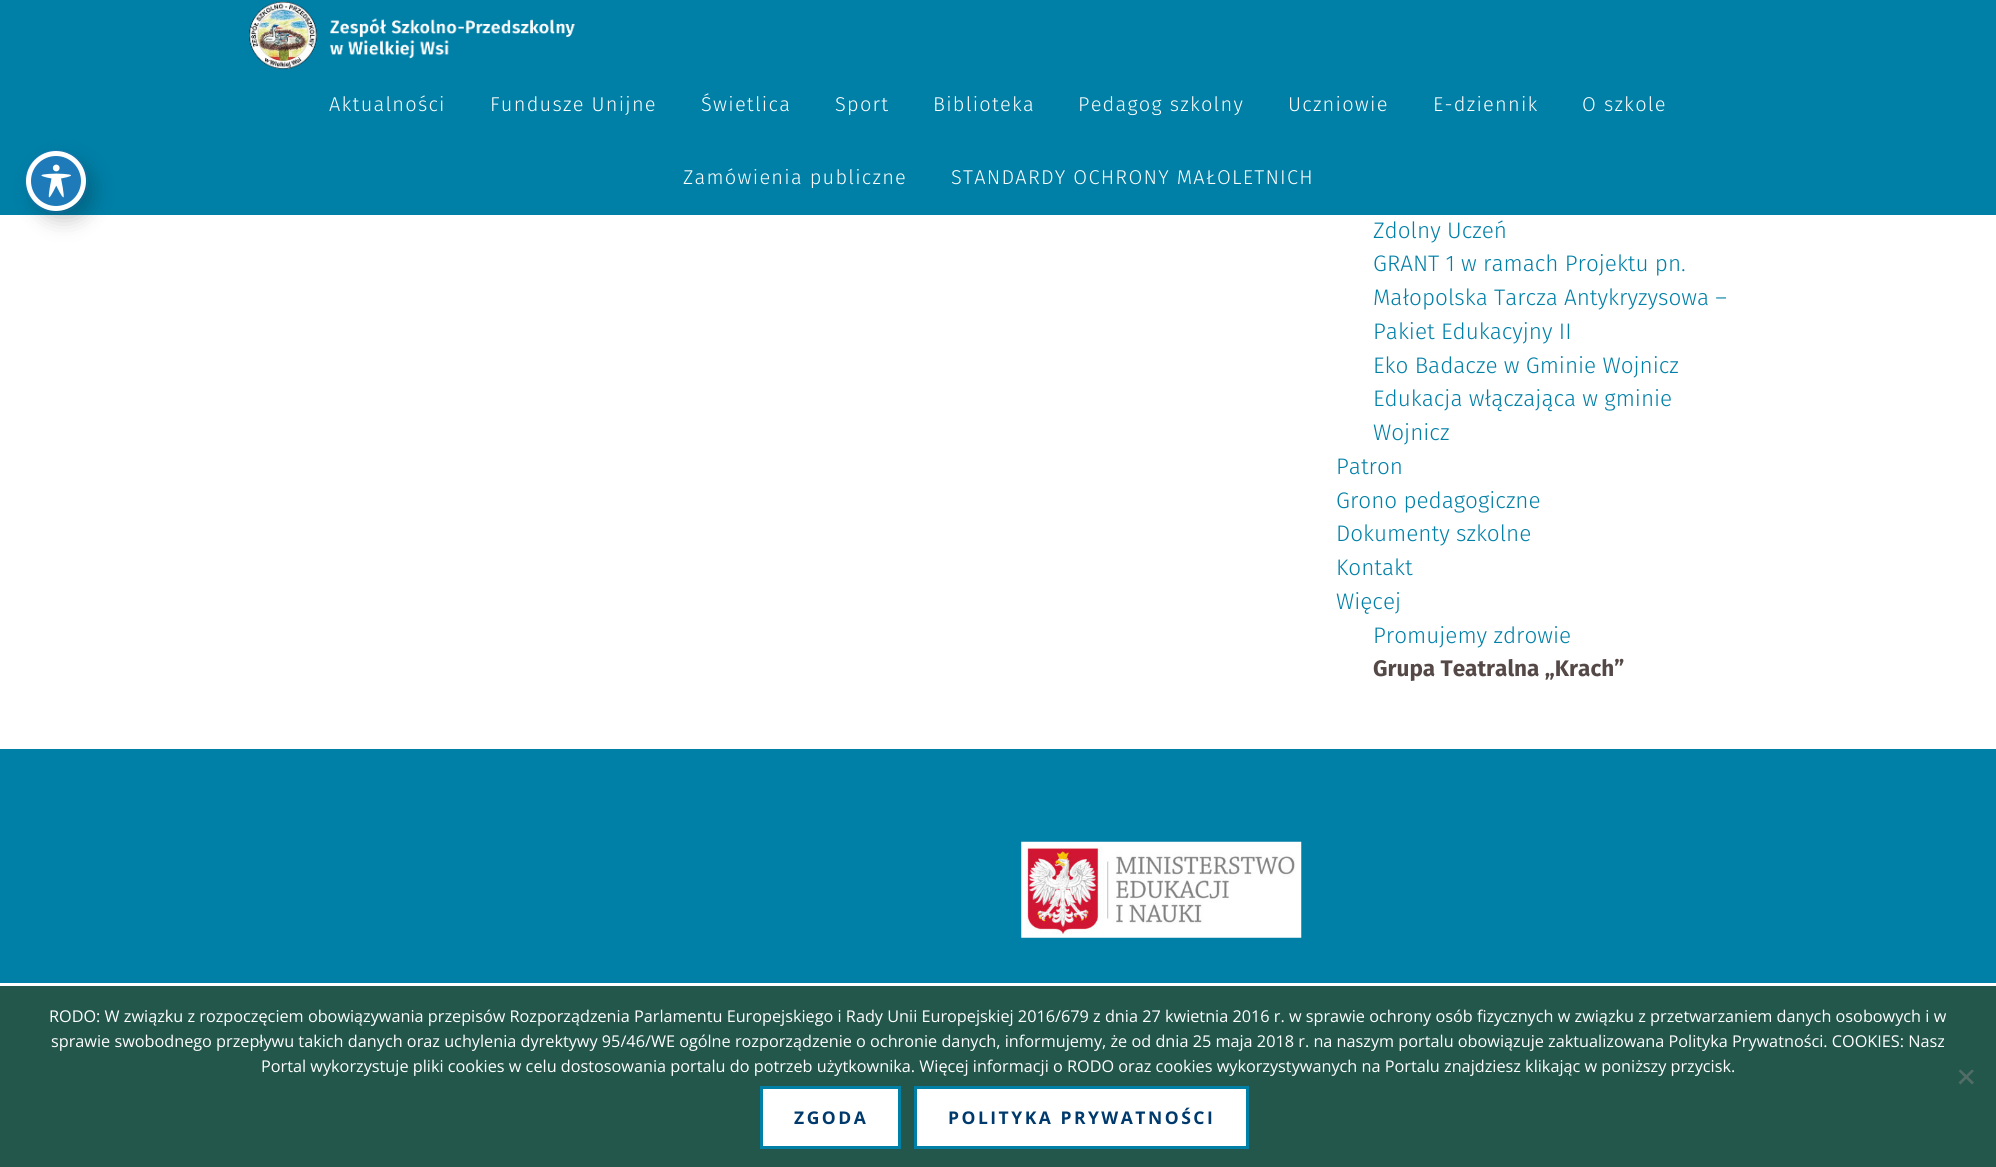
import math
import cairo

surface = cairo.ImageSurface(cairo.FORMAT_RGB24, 1996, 1167)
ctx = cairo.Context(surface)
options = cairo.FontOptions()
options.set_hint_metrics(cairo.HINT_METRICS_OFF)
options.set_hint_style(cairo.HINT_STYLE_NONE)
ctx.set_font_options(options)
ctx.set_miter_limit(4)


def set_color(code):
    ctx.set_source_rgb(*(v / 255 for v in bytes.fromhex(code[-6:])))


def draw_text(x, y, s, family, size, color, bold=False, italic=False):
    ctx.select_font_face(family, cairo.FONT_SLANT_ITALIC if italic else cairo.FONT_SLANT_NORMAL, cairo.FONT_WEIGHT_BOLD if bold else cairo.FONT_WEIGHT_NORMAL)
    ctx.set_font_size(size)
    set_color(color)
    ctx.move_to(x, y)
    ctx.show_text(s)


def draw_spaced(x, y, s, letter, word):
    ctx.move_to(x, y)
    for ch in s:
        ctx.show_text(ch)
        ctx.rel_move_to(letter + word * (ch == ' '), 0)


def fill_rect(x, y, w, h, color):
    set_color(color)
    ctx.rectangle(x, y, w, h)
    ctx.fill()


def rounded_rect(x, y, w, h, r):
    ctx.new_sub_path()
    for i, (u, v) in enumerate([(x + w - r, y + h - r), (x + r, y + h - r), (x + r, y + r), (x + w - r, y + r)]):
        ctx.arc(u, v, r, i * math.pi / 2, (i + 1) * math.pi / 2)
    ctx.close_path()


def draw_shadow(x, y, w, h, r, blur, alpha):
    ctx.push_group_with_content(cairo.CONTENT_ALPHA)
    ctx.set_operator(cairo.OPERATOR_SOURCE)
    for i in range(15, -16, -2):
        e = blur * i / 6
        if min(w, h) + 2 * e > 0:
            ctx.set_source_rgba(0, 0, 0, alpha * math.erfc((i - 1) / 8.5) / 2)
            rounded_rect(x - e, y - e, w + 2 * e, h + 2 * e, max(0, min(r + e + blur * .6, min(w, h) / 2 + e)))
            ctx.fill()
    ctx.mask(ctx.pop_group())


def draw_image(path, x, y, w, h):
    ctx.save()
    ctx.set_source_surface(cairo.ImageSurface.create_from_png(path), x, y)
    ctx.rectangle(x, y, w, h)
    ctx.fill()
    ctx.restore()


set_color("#ffffff")
ctx.paint()
fill_rect(0, 0, 1996, 215, "#007fa7")
ctx.arc(56.5, 181.5, 31, 0, 2 * math.pi)
set_color("#1e7ab9")
ctx.set_line_width(1)
ctx.stroke()
set_color("#000000")
draw_shadow(34, 161, 60, 60, 30, 10, 0.2)
set_color("#1e7ab9")
ctx.arc(56, 181, 27.5, 0, 2 * math.pi)
ctx.fill_preserve()
set_color("#ffffff")
ctx.set_line_width(5)
ctx.stroke()
draw_image("assets/img1.png", 41, 164, 30, 34)
draw_image("assets/img2.png", 249, 1, 326, 69)
ctx.select_font_face("Fira Sans Light")
ctx.set_font_size(20)
draw_spaced(329, 111, "Aktualności", 1.25, 0)
draw_spaced(490, 111, "Fundusze Unijne", 1.25, 0)
draw_spaced(701, 111, "Świetlica", 1.25, 0)
draw_spaced(835, 111, "Sport", 1.25, 0)
draw_spaced(933, 111, "Biblioteka", 1.25, 0)
draw_spaced(1078, 111, "Pedagog szkolny", 1.25, 0)
draw_spaced(1288, 111, "Uczniowie", 1.25, 0)
draw_spaced(1433, 111, "E-dziennik", 1.25, 0)
draw_spaced(1582, 111, "O szkole", 1.25, 0)
draw_spaced(683, 184, "Zamówienia publiczne", 1.25, 0)
draw_spaced(951, 184, "STANDARDY OCHRONY MAŁOLETNICH", 1.25, 0)
draw_text(1373, 238, "Zdolny Uczeń", "Fira Sans Light", 22.5, "#007fa7")
draw_text(1373, 271, "GRANT 1 w ramach Projektu pn.", "Fira Sans Light", 22.5, "#007fa7")
draw_text(1373, 305, "Małopolska Tarcza Antykryzysowa –", "Fira Sans Light", 22.5, "#007fa7")
draw_text(1373, 339, "Pakiet Edukacyjny II", "Fira Sans Light", 22.5, "#007fa7")
draw_text(1373, 373, "Eko Badacze w Gminie Wojnicz", "Fira Sans Light", 22.5, "#007fa7")
draw_text(1373, 406, "Edukacja włączająca w gminie", "Fira Sans Light", 22.5, "#007fa7")
draw_text(1373, 440, "Wojnicz", "Fira Sans Light", 22.5, "#007fa7")
draw_text(1336, 474, "Patron", "Fira Sans Light", 22.5, "#007fa7")
draw_text(1336, 508, "Grono pedagogiczne", "Fira Sans Light", 22.5, "#007fa7")
draw_text(1336, 541, "Dokumenty szkolne", "Fira Sans Light", 22.5, "#007fa7")
draw_text(1336, 575, "Kontakt", "Fira Sans Light", 22.5, "#007fa7")
draw_text(1336, 609, "Więcej", "Fira Sans Light", 22.5, "#007fa7")
draw_text(1373, 643, "Promujemy zdrowie", "Fira Sans Light", 22.5, "#007fa7")
draw_text(1373, 676, "Grupa Teatralna „Krach”", "Fira Sans", 22.5, "#554948", bold=True)
fill_rect(0, 749, 1996, 234, "#007fa7")
draw_image("assets/img3.png", 1021, 841, 281, 97)
fill_rect(0, 986, 1996, 181, "#23574b")
draw_text(49, 1022, "RODO: W związku z rozpoczęciem obowiązywania przepisów Rozporządzenia Parlamentu Europejskiego i Rady Unii Europejskiej 2016/679 z dnia 27 kwietnia 2016 r. w sprawie ochrony osób fizycznych w związku z przetwarzaniem danych osobowych i w", "Open Sans", 16.25, "#ffffff")
draw_text(51, 1047, "sprawie swobodnego przepływu takich danych oraz uchylenia dyrektywy 95/46/WE ogólne rozporządzenie o ochronie danych, informujemy, że od dnia 25 maja 2018 r. na naszym portalu obowiązuje zaktualizowana Polityka Prywatności. COOKIES: Nasz", "Open Sans", 16.25, "#ffffff")
draw_text(261, 1072, "Portal wykorzystuje pliki cookies w celu dostosowania portalu do potrzeb użytkownika. Więcej informacji o RODO oraz cookies wykorzystywanych na Portalu znajdziesz klikając w poniższy przycisk.", "Open Sans", 16.25, "#ffffff")
set_color("#526c66")
ctx.new_path()
ctx.move_to(1972, 1069.5)
ctx.line_to(1974, 1071)
ctx.line_to(1960.5, 1084.5)
ctx.line_to(1958.5, 1082.5)
ctx.close_path()
ctx.fill()
ctx.new_path()
ctx.move_to(1958.5, 1071)
ctx.line_to(1960.5, 1069.5)
ctx.line_to(1974, 1082.5)
ctx.line_to(1972, 1084.5)
ctx.close_path()
ctx.fill()
set_color("#ffffff")
ctx.rectangle(761.5, 1087.5, 138, 60)
ctx.fill_preserve()
set_color("#007fa7")
ctx.set_line_width(3)
ctx.stroke()
ctx.select_font_face("Open Sans", cairo.FONT_SLANT_NORMAL, cairo.FONT_WEIGHT_BOLD)
ctx.set_font_size(17.5)
set_color("#003a6c")
draw_spaced(794, 1124, "ZGODA", 2.5, 0)
set_color("#ffffff")
ctx.rectangle(915.5, 1087.5, 332, 60)
ctx.fill_preserve()
set_color("#007fa7")
ctx.stroke()
set_color("#003a6c")
draw_spaced(948, 1124, "POLITYKA PRYWATNOŚCI", 2.5, 0)
surface.write_to_png("output.png")
